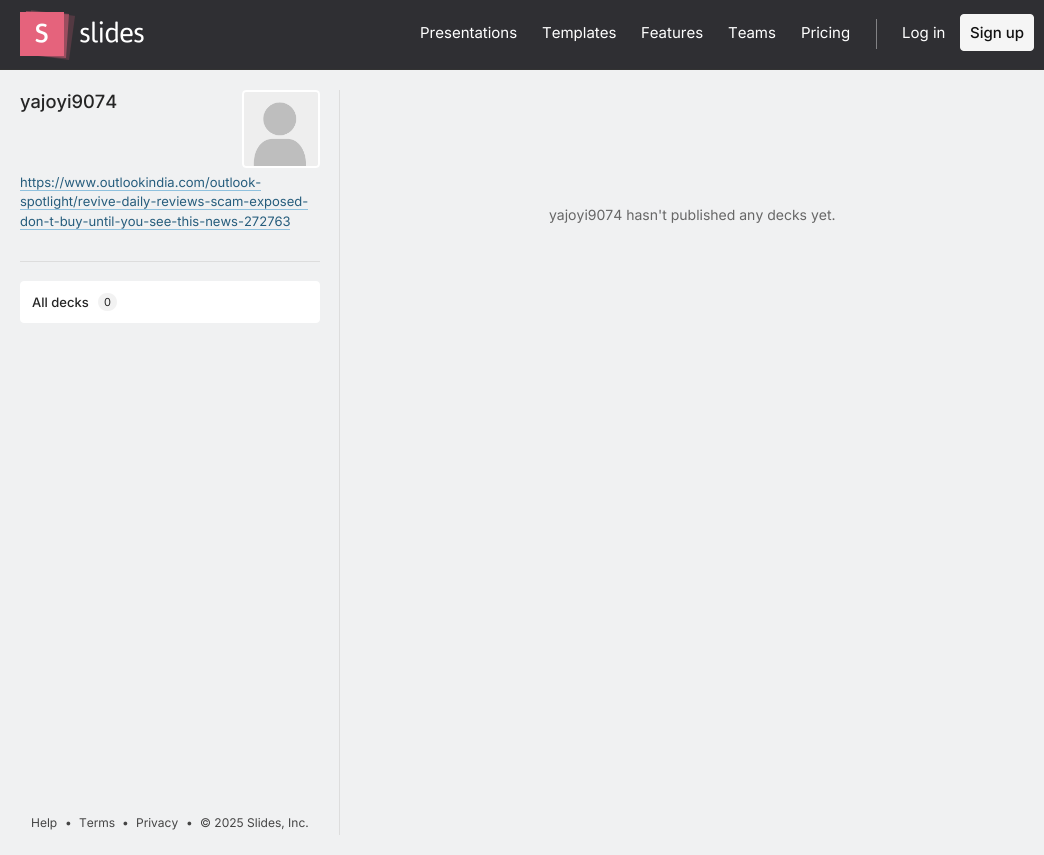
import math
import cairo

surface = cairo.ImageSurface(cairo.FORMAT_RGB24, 1044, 855)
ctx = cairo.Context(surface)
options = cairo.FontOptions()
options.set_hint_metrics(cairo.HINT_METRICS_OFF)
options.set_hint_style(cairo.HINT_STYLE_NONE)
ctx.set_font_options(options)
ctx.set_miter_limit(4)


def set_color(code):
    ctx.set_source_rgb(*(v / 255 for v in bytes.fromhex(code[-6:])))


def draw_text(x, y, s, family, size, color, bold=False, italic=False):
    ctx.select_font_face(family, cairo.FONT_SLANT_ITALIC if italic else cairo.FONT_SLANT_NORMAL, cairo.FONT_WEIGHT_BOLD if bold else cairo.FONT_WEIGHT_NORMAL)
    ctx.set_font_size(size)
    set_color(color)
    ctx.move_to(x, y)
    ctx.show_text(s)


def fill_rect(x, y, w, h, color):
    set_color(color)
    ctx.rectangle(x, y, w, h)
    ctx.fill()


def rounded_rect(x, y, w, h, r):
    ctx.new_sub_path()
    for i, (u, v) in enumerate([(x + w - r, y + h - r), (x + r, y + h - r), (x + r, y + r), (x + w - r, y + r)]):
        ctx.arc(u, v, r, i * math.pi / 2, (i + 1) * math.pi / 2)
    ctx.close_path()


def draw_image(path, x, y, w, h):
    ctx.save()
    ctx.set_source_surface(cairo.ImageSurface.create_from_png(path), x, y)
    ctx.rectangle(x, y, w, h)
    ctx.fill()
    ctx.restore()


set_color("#f0f1f2")
ctx.paint()
fill_rect(0, 0, 1044, 69, "#2f2f33")
fill_rect(0, 69, 1044, 1, "#333333")
set_color("#533942")
ctx.new_path()
ctx.move_to(31, 10)
ctx.line_to(75, 16)
ctx.line_to(69, 60)
ctx.line_to(25, 54)
ctx.close_path()
ctx.fill()
ctx.set_source_rgba(0.898, 0.388, 0.486, 0.5)
ctx.new_path()
ctx.move_to(26, 11)
ctx.line_to(69, 14)
ctx.line_to(66, 58)
ctx.line_to(23, 55)
ctx.close_path()
ctx.fill()
fill_rect(20, 12, 44, 44, "#e5637c")
draw_image("assets/img1.png", 35, 23, 13, 20)
draw_image("assets/img2.png", 80, 21, 64, 22)
draw_text(420, 38, "Presentations", "Inter", 15, "#ffffff")
draw_text(542, 38, "Templates", "Inter", 15, "#ffffff")
draw_text(641, 38, "Features", "Inter", 15, "#ffffff")
draw_text(728, 38, "Teams", "Inter", 15, "#ffffff")
draw_text(801, 38, "Pricing", "Inter", 15, "#ffffff")
fill_rect(876, 19, 1, 30, "#828285")
draw_text(902, 38, "Log in", "Inter", 15, "#ffffff")
set_color("#f5f5f5")
rounded_rect(960, 14, 74, 37, 4)
ctx.fill()
draw_text(970, 38, "Sign up", "Inter Medium", 15, "#111111")
fill_rect(20, 261, 300, 1, "#dddddd")
set_color("#eeeeee")
rounded_rect(242, 90, 78, 78, 4)
ctx.fill()
draw_image("assets/img3.png", 253, 102, 53, 64)
rounded_rect(243, 91, 76, 76, 3)
set_color("#ffffff")
ctx.stroke()
draw_text(20, 108, "yajoyi9074", "Inter Medium", 18.25, "#252525")
draw_text(20, 187, "https://www.outlookindia.com/outlook-", "Inter", 13, "#255c7c")
fill_rect(20, 190, 241, 1, "#8fc1de")
draw_text(20, 206, "spotlight/revive-daily-reviews-scam-exposed-", "Inter", 13, "#255c7c")
fill_rect(20, 209, 288, 1, "#8fc1de")
draw_text(20, 226, "don-t-buy-until-you-see-this-news-272763", "Inter", 13, "#255c7c")
fill_rect(20, 229, 270, 1, "#8fc1de")
fill_rect(339, 90, 1, 745, "#dddddd")
set_color("#ffffff")
rounded_rect(20, 281, 300, 42, 4)
ctx.fill()
draw_text(32, 307, "All decks", "Inter Medium", 13, "#252525")
set_color("#f2f2f2")
rounded_rect(98, 293, 19, 18, 9)
ctx.fill()
draw_text(104, 306, "0", "Inter", 11, "#252525")
draw_text(31, 827, "Help", "Inter", 12, "#444444")
draw_text(65, 827, "•", "Inter", 12, "#444444")
draw_text(79, 827, "Terms", "Inter", 12, "#444444")
draw_text(122, 827, "•", "Inter", 12, "#444444")
draw_text(136, 827, "Privacy", "Inter", 12, "#444444")
draw_text(186, 827, "•", "Inter", 12, "#444444")
draw_text(200, 827, "© 2025 Slides, Inc.", "Inter", 12, "#444444")
draw_text(549, 220, "yajoyi9074 hasn't published any decks yet.", "Inter", 14, "#666666")
surface.write_to_png("output.png")
